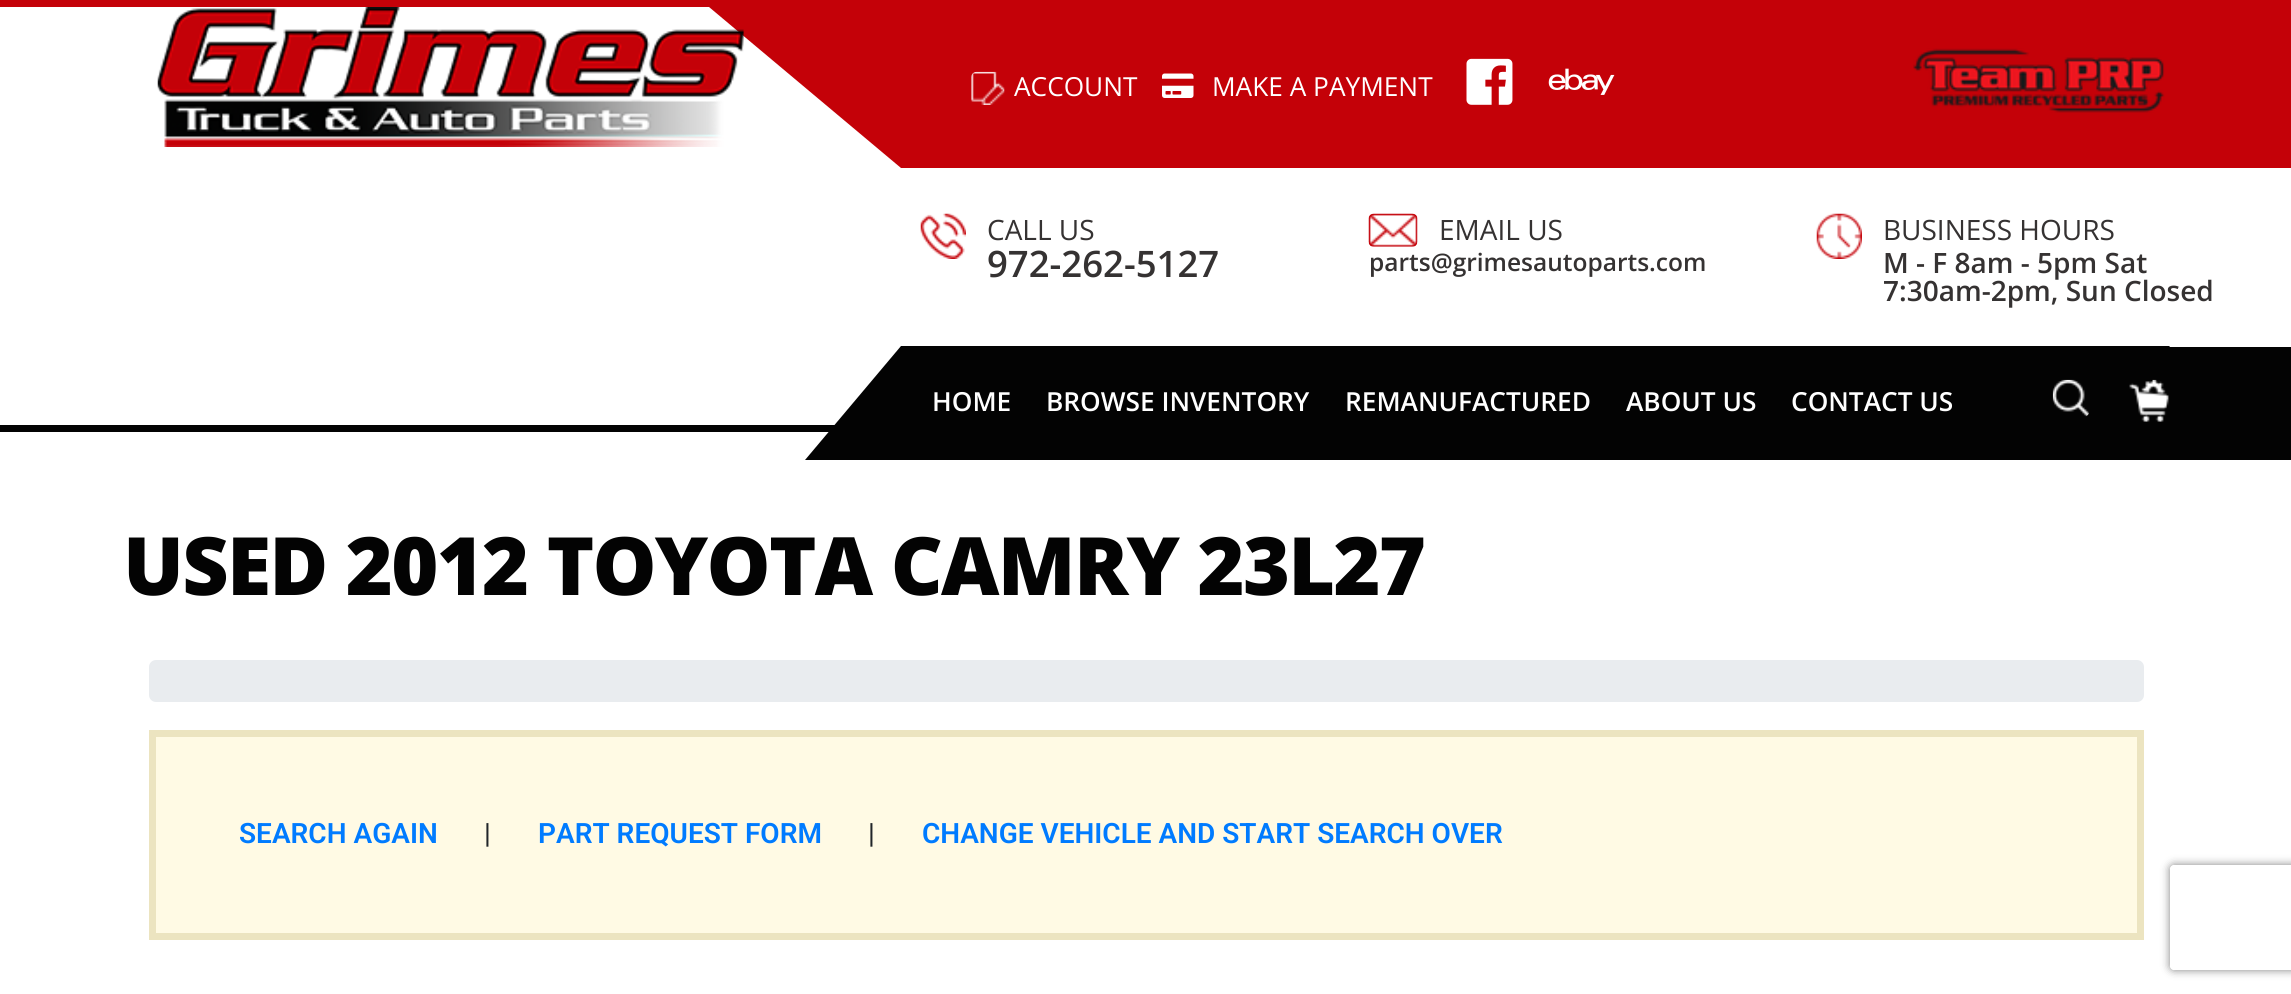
import math
import cairo

surface = cairo.ImageSurface(cairo.FORMAT_RGB24, 2291, 994)
ctx = cairo.Context(surface)
options = cairo.FontOptions()
options.set_hint_metrics(cairo.HINT_METRICS_OFF)
options.set_hint_style(cairo.HINT_STYLE_NONE)
ctx.set_font_options(options)
ctx.set_miter_limit(4)


def set_color(code):
    ctx.set_source_rgb(*(v / 255 for v in bytes.fromhex(code[-6:])))


def draw_text(x, y, s, family, size, color, bold=False, italic=False):
    ctx.select_font_face(family, cairo.FONT_SLANT_ITALIC if italic else cairo.FONT_SLANT_NORMAL, cairo.FONT_WEIGHT_BOLD if bold else cairo.FONT_WEIGHT_NORMAL)
    ctx.set_font_size(size)
    set_color(color)
    ctx.move_to(x, y)
    ctx.show_text(s)


def draw_spaced(x, y, s, letter, word):
    ctx.move_to(x, y)
    for ch in s:
        ctx.show_text(ch)
        ctx.rel_move_to(letter + word * (ch == ' '), 0)


def fill_rect(x, y, w, h, color):
    set_color(color)
    ctx.rectangle(x, y, w, h)
    ctx.fill()


def rounded_rect(x, y, w, h, r):
    ctx.new_sub_path()
    for i, (u, v) in enumerate([(x + w - r, y + h - r), (x + r, y + h - r), (x + r, y + r), (x + w - r, y + r)]):
        ctx.arc(u, v, r, i * math.pi / 2, (i + 1) * math.pi / 2)
    ctx.close_path()


def draw_shadow(x, y, w, h, r, blur, alpha):
    ctx.push_group_with_content(cairo.CONTENT_ALPHA)
    ctx.set_operator(cairo.OPERATOR_SOURCE)
    for i in range(15, -16, -2):
        e = blur * i / 6
        if min(w, h) + 2 * e > 0:
            ctx.set_source_rgba(0, 0, 0, alpha * math.erfc((i - 1) / 8.5) / 2)
            rounded_rect(x - e, y - e, w + 2 * e, h + 2 * e, max(0, min(r + e + blur * .6, min(w, h) / 2 + e)))
            ctx.fill()
    ctx.mask(ctx.pop_group())


def draw_image(path, x, y, w, h):
    ctx.save()
    ctx.set_source_surface(cairo.ImageSurface.create_from_png(path), x, y)
    ctx.rectangle(x, y, w, h)
    ctx.fill()
    ctx.restore()


set_color("#ffffff")
ctx.paint()
fill_rect(0, 0, 2291, 7, "#c40108")
fill_rect(0, 425, 835, 7, "#030303")
set_color("#c40108")
ctx.new_path()
ctx.move_to(709, 7)
ctx.line_to(1978, 7)
ctx.line_to(2170, 168)
ctx.line_to(901, 168)
ctx.close_path()
ctx.fill()
draw_image("assets/img1.png", 157, 7, 587, 140)
fill_rect(1978, 7, 313, 161, "#c40108")
draw_image("assets/img2.png", 971, 71, 34, 34)
draw_text(1014, 96, "ACCOUNT", "Open Sans", 26.25, "#ffffff")
draw_image("assets/img3.png", 1162, 73, 32, 25)
draw_text(1212, 96, "MAKE A PAYMENT", "Open Sans", 26.25, "#ffffff")
draw_image("assets/img4.png", 1466, 58, 47, 47)
draw_image("assets/img5.png", 1548, 68, 67, 27)
draw_image("assets/img6.png", 1913, 48, 252, 65)
draw_image("assets/img7.png", 920, 213, 46, 46)
draw_text(987, 240, "CALL US", "Open Sans", 28, "#353232")
draw_text(987, 277, "972-262-5127", "Open Sans SemiBold", 36.5, "#353232")
draw_image("assets/img8.png", 1368, 213, 50, 34)
draw_text(1439, 240, "EMAIL US", "Open Sans", 28, "#353232")
draw_text(1369, 271, "parts@grimesautoparts.com", "Open Sans SemiBold", 24.5, "#353232")
draw_image("assets/img9.png", 1816, 213, 46, 46)
draw_text(1883, 240, "BUSINESS HOURS", "Open Sans", 28, "#353232")
draw_text(1883, 273, "M - F 8am - 5pm Sat", "Open Sans SemiBold", 28, "#353232")
draw_text(1883, 301, "7:30am-2pm, Sun Closed", "Open Sans SemiBold", 28, "#353232")
fill_rect(2075, 347, 216, 113, "#030303")
ctx.new_path()
ctx.move_to(901, 346)
ctx.line_to(2170, 346)
ctx.line_to(2075, 460)
ctx.line_to(805, 460)
ctx.close_path()
ctx.fill()
draw_text(932, 411, "HOME", "Open Sans SemiBold", 26.25, "#ffffff")
draw_text(1046, 411, "BROWSE INVENTORY", "Open Sans SemiBold", 26.25, "#ffffff")
draw_text(1345, 411, "REMANUFACTURED", "Open Sans SemiBold", 26.25, "#ffffff")
draw_text(1626, 411, "ABOUT US", "Open Sans SemiBold", 26.25, "#ffffff")
draw_text(1791, 411, "CONTACT US", "Open Sans SemiBold", 26.25, "#ffffff")
draw_image("assets/img10.png", 2052, 379, 37, 38)
draw_image("assets/img11.png", 2129, 379, 40, 43)
ctx.select_font_face("Open Sans ExtraBold")
ctx.set_font_size(80.5)
set_color("#030303")
draw_spaced(123, 595, "USED 2012 TOYOTA CAMRY 23L27", -1.75, 0)
set_color("#e9ecef")
rounded_rect(149, 660, 1995, 42, 7)
ctx.fill()
set_color("#fffae4")
ctx.rectangle(152.5, 733.5, 1988, 203)
ctx.fill_preserve()
set_color("#ece4c0")
ctx.set_line_width(7)
ctx.stroke()
draw_text(239, 843, "SEARCH AGAIN", "Roboto SemiBold", 28, "#007bff")
draw_text(484, 843, "|", "Roboto", 28, "#212529")
draw_text(538, 843, "PART REQUEST FORM", "Roboto SemiBold", 28, "#007bff")
draw_text(868, 843, "|", "Roboto", 28, "#212529")
draw_text(922, 843, "CHANGE VEHICLE AND START SEARCH OVER", "Roboto SemiBold", 28, "#007bff")
ctx.save()
ctx.set_fill_rule(cairo.FILL_RULE_EVEN_ODD)
ctx.new_path()
ctx.move_to(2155, 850)
ctx.line_to(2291, 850)
ctx.line_to(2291, 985)
ctx.line_to(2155, 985)
ctx.close_path()
ctx.move_to(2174, 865)
ctx.line_to(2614, 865)
ctx.curve_to(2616, 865, 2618, 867, 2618, 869)
ctx.line_to(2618, 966)
ctx.curve_to(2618, 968, 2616, 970, 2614, 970)
ctx.line_to(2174, 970)
ctx.curve_to(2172, 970, 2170, 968, 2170, 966)
ctx.line_to(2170, 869)
ctx.curve_to(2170, 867, 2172, 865, 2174, 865)
ctx.close_path()
ctx.clip()
set_color("#808080")
draw_shadow(2170, 865, 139, 105, 4, 4.5, 1)
ctx.restore()
surface.write_to_png("output.png")
